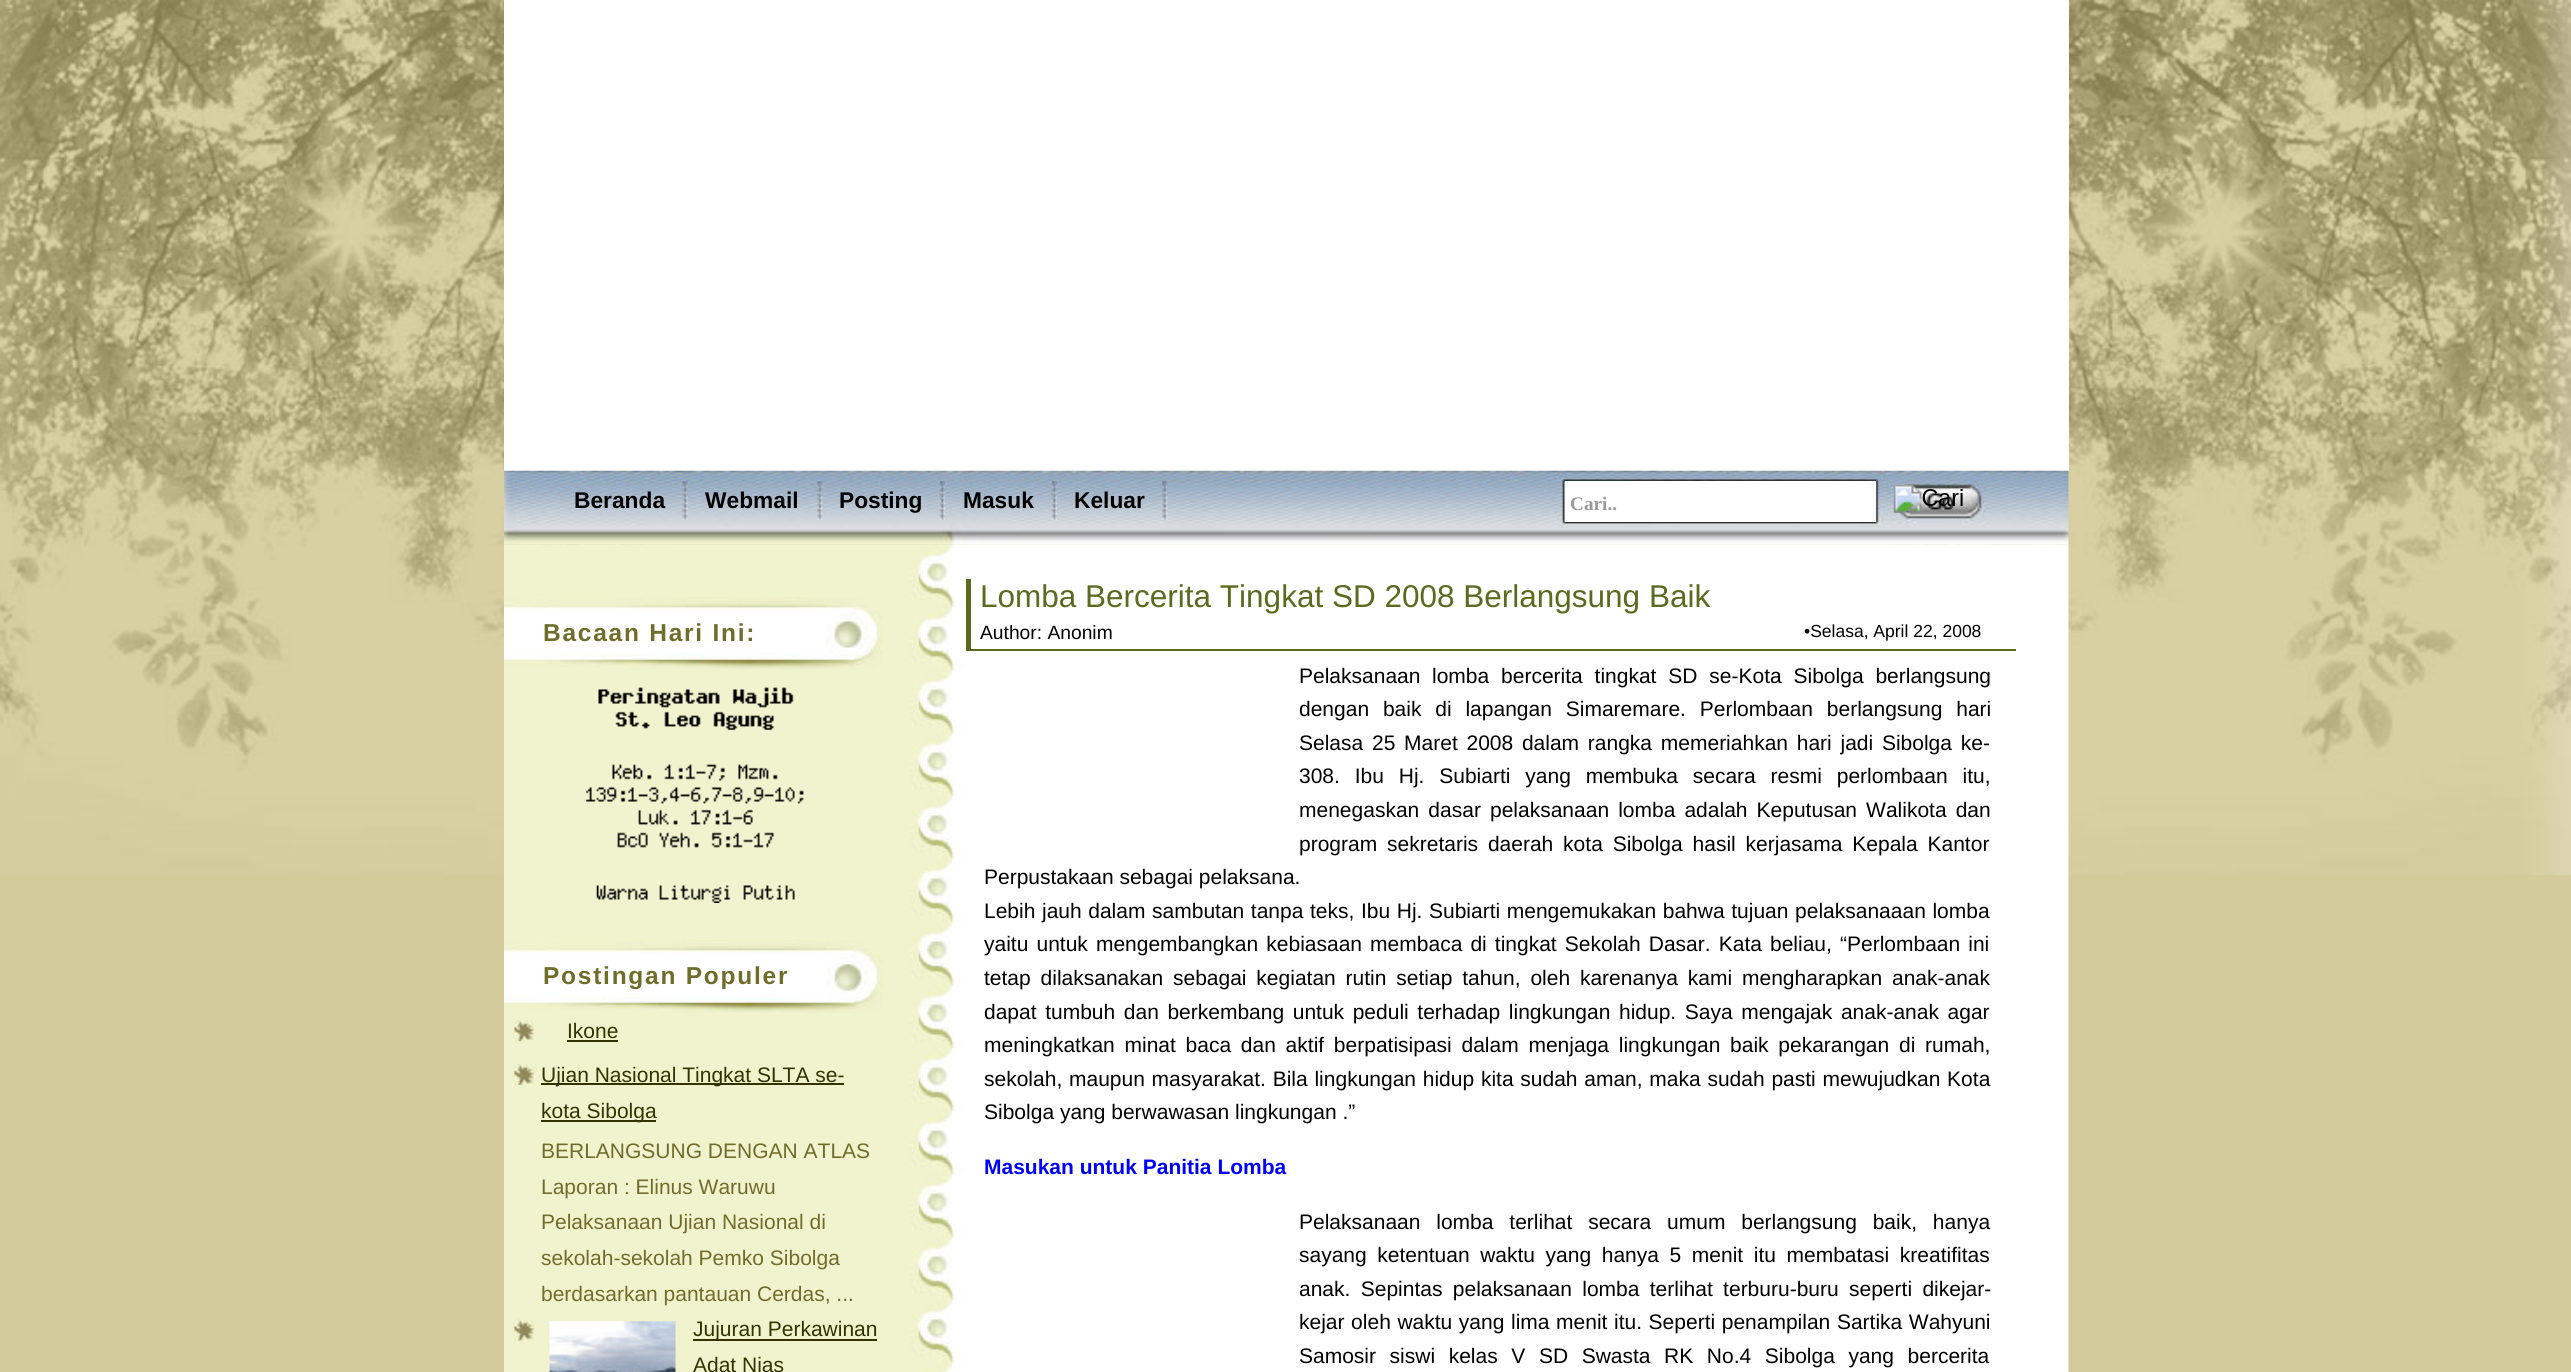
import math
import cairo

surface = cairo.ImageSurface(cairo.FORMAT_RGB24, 2571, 1372)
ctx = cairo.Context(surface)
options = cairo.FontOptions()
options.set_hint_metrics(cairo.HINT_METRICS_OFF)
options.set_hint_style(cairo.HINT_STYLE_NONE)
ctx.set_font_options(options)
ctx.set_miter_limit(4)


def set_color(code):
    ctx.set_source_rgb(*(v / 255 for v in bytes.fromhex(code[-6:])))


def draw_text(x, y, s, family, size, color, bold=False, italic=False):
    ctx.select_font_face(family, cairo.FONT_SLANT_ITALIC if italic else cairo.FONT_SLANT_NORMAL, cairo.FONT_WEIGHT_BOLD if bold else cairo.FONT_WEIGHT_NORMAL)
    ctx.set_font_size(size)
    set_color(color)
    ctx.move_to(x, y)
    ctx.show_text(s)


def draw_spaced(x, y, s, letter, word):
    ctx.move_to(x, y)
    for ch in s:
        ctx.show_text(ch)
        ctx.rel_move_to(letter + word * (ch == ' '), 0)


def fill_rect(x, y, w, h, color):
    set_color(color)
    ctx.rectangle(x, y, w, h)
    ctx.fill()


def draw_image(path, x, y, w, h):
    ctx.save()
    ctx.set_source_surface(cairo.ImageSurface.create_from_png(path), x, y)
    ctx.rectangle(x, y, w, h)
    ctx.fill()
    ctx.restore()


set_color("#d4cb9d")
ctx.paint()
draw_image("assets/img1.png", 0, 0, 2571, 875)
fill_rect(504, 0, 1565, 471, "#ffffff")
draw_image("assets/img2.png", 504, 470, 1565, 75)
draw_text(574, 508, "Beranda", "Liberation Sans", 22.75, "#000000", bold=True)
draw_image("assets/img3.png", 682, 481, 6, 39)
draw_text(705, 508, "Webmail", "Liberation Sans", 22.75, "#000000", bold=True)
draw_image("assets/img4.png", 817, 481, 6, 39)
draw_text(839, 508, "Posting", "Liberation Sans", 22.75, "#000000", bold=True)
draw_image("assets/img5.png", 939, 481, 6, 39)
draw_text(963, 508, "Masuk", "Liberation Sans", 22.75, "#000000", bold=True)
draw_image("assets/img6.png", 1051, 481, 6, 39)
draw_text(1074, 508, "Keluar", "Liberation Sans", 22.75, "#000000", bold=True)
draw_image("assets/img7.png", 1162, 481, 6, 39)
fill_rect(1565, 481, 311, 41, "#ffffff")
draw_text(1570, 510, "Cari..", "Liberation Serif", 19.25, "#999999", bold=True)
draw_image("assets/img8.png", 1893, 485, 70, 28)
draw_image("assets/img9.png", 504, 544, 1565, 828)
draw_image("assets/img10.png", 504, 597, 378, 73)
ctx.select_font_face("Liberation Sans", cairo.FONT_SLANT_NORMAL, cairo.FONT_WEIGHT_BOLD)
ctx.set_font_size(24.5)
set_color("#706d2a")
draw_spaced(543, 641, "Bacaan Hari Ini:", 1.75, 0)
draw_image("assets/img11.png", 598, 687, 196, 43)
draw_image("assets/img12.png", 586, 764, 218, 84)
draw_image("assets/img13.png", 596, 885, 199, 18)
draw_image("assets/img10.png", 504, 940, 378, 73)
draw_spaced(543, 984, "Postingan Populer", 1.75, 0)
draw_image("assets/img14.png", 513, 1020, 21, 22)
draw_text(567, 1038, "Ikone", "Liberation Sans", 21, "#333300")
fill_rect(567, 1040, 51, 2, "#333300")
draw_image("assets/img15.png", 513, 1064, 21, 21)
fill_rect(541, 1083, 303, 2, "#333300")
draw_text(541, 1082, "Ujian Nasional Tingkat SLTA se-", "Liberation Sans", 21, "#333300")
fill_rect(541, 1120, 115, 2, "#333300")
draw_text(541, 1118, "kota Sibolga", "Liberation Sans", 21, "#333300")
draw_text(541, 1158, "BERLANGSUNG DENGAN ATLAS", "Liberation Sans", 21, "#706d2a")
draw_text(541, 1194, "Laporan : Elinus Waruwu", "Liberation Sans", 21, "#706d2a")
draw_text(541, 1229, "Pelaksanaan Ujian Nasional di", "Liberation Sans", 21, "#706d2a")
draw_text(541, 1265, "sekolah-sekolah Pemko Sibolga", "Liberation Sans", 21, "#706d2a")
draw_text(541, 1301, "berdasarkan pantauan Cerdas, ...", "Liberation Sans", 21, "#706d2a")
draw_image("assets/img16.png", 513, 1319, 21, 22)
draw_image("assets/img17.png", 549, 1321, 127, 51)
fill_rect(693, 1339, 184, 2, "#333300")
draw_text(693, 1336, "Jujuran Perkawinan", "Liberation Sans", 21, "#333300")
draw_text(693, 1372, "Adat Nias", "Liberation Sans", 21, "#333300")
fill_rect(966, 649, 1050, 2, "#5a6b1e")
fill_rect(966, 579, 5, 72, "#5a6b1e")
draw_text(980, 607, "Lomba Bercerita Tingkat SD 2008 Berlangsung Baik", "Liberation Sans", 31.5, "#5a6b1e")
draw_text(980, 639, "Author: Anonim", "Liberation Sans", 19.25, "#000000")
draw_text(1804, 637, "•Selasa, April 22, 2008", "Liberation Sans", 17.5, "#000000")
draw_text(1299, 683, "Pelaksanaan", "Liberation Sans", 21, "#000000")
draw_spaced(1432, 683, "lomba bercerita tingkat SD se-Kota Sibolga berlangsung", 0, 6)
draw_spaced(1299, 716, "dengan baik di lapangan Simaremare. Perlombaan berlangsung hari", 0, 8)
draw_spaced(1299, 750, "Selasa 25 Maret 2008 dalam rangka memeriahkan hari jadi Sibolga ke-", 0, 2.9)
draw_spaced(1299, 783, "308. Ibu Hj. Subiarti yang membuka secara resmi perlombaan itu,", 0, 9)
draw_spaced(1299, 817, "menegaskan dasar pelaksanaan lomba adalah Keputusan Walikota dan", 0, 3.25)
draw_spaced(1299, 851, "program sekretaris daerah kota Sibolga hasil kerjasama Kepala Kantor", 0, 4)
draw_text(984, 884, "Perpustakaan sebagai pelaksana.", "Liberation Sans", 21, "#000000")
draw_spaced(984, 918, "Lebih jauh dalam sambutan tanpa teks, Ibu Hj. Subiarti mengemukakan bahwa tujuan pelaksanaaan lomba", 0, 0.75)
draw_spaced(984, 951, "yaitu untuk mengembangkan kebiasaan membaca di tingkat Sekolah Dasar. Kata beliau, “Perlombaan ini", 0, 2.25)
draw_spaced(984, 985, "tetap dilaksanakan sebagai kegiatan rutin setiap tahun, oleh karenanya kami mengharapkan anak-anak", 0, 4)
draw_spaced(984, 1019, "dapat tumbuh dan berkembang untuk peduli terhadap lingkungan hidup. Saya mengajak anak-anak agar", 0, 2.75)
draw_spaced(984, 1052, "meningkatkan minat baca dan aktif berpatisipasi dalam menjaga lingkungan baik pekarangan di rumah,", 0, 3.9)
draw_spaced(984, 1086, "sekolah, maupun masyarakat. Bila lingkungan hidup kita sudah aman, maka sudah pasti mewujudkan Kota", 0, 0.9)
draw_text(984, 1119, "Sibolga yang berwawasan lingkungan .”", "Liberation Sans", 21, "#000000")
draw_text(984, 1174, "Masukan untuk Panitia Lomba", "Liberation Sans", 21, "#0000ff", bold=True)
ctx.select_font_face("Liberation Sans")
set_color("#000000")
draw_spaced(1299, 1229, "Pelaksanaan lomba terlihat secara umum berlangsung baik, hanya", 0, 10)
draw_spaced(1299, 1262, "sayang ketentuan waktu yang hanya 5 menit itu membatasi kreatifitas", 0, 4.75)
draw_spaced(1299, 1296, "anak. Sepintas pelaksanaan lomba terlihat terburu-buru seperti dikejar-", 0, 4.5)
draw_spaced(1299, 1329, "kejar oleh waktu yang lima menit itu. Seperti penampilan Sartika Wahyuni", 0, 0.75)
draw_spaced(1299, 1363, "Samosir siswi kelas V SD Swasta RK No.4 Sibolga yang bercerita", 0, 7.75)
surface.write_to_png("output.png")
